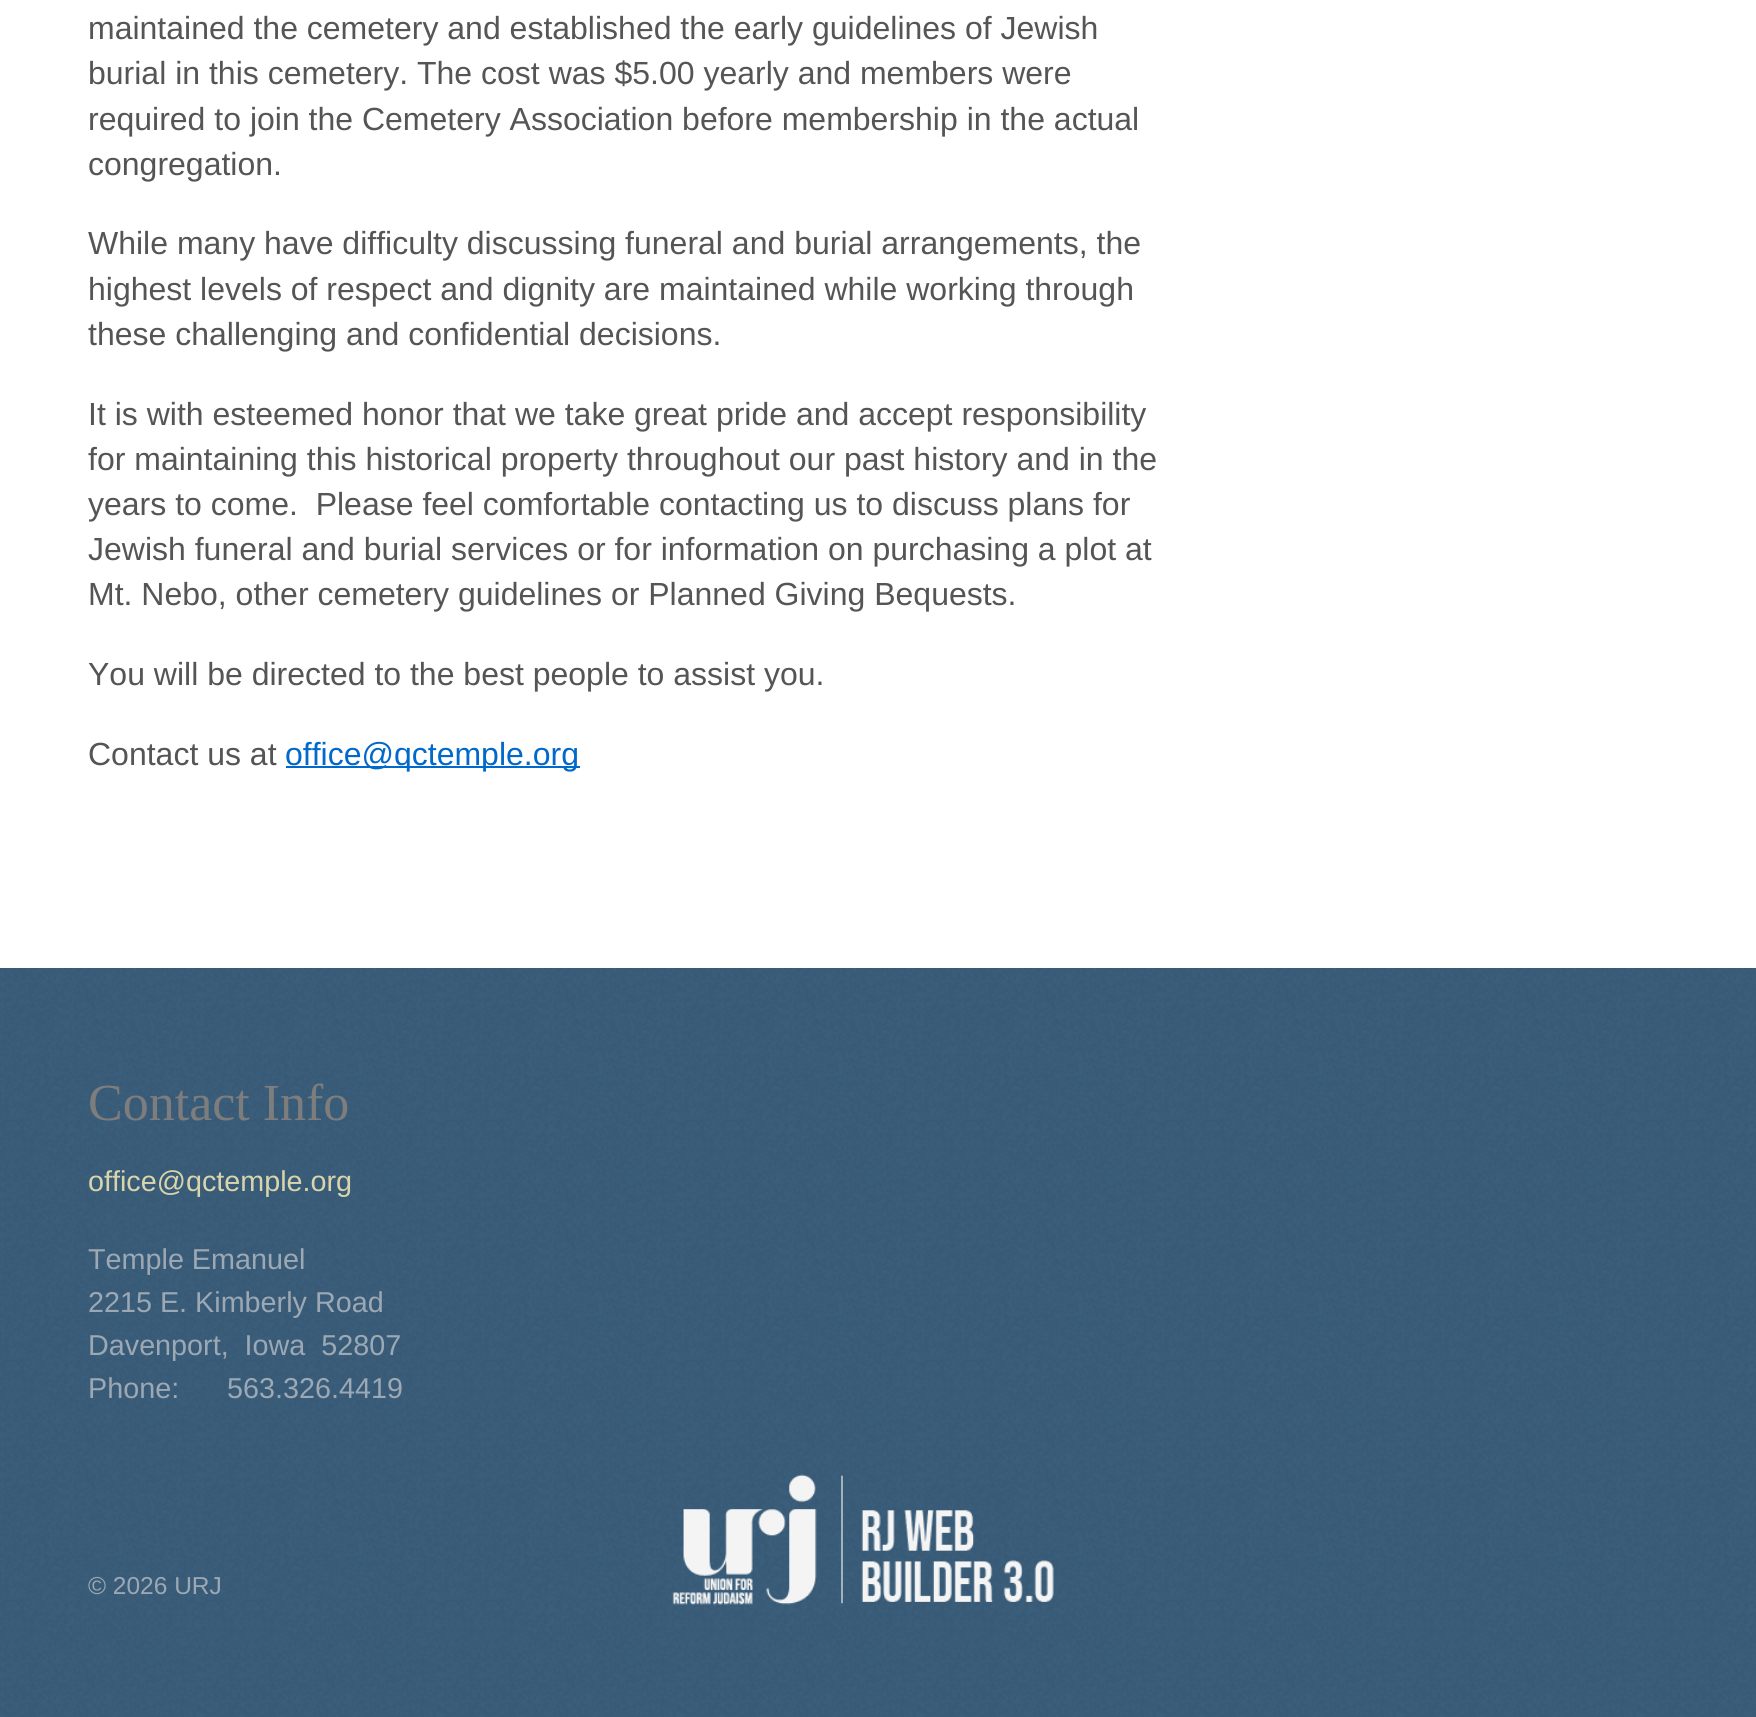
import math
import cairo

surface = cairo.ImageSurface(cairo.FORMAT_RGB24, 1756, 1717)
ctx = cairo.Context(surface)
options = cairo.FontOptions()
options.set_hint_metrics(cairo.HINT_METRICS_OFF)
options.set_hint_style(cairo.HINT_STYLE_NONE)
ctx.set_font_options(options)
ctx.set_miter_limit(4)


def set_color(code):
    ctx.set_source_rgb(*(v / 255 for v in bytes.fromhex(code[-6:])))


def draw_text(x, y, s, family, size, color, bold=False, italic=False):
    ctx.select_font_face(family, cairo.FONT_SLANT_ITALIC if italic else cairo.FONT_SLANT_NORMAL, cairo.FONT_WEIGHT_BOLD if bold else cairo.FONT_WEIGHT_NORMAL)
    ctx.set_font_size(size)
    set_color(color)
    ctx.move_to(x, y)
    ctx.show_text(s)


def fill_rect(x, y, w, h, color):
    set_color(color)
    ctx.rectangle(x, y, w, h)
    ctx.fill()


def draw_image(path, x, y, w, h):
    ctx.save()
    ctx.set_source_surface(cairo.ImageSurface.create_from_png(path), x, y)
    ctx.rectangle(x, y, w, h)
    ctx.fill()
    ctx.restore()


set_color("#ffffff")
ctx.paint()
draw_text(88, 39, "maintained the cemetery and established the early guidelines of Jewish", "Liberation Sans", 32, "#555555")
draw_text(88, 84, "burial in this cemetery. The cost was $5.00 yearly and members were", "Liberation Sans", 32, "#555555")
draw_text(88, 130, "required to join the Cemetery Association before membership in the actual", "Liberation Sans", 32, "#555555")
draw_text(88, 175, "congregation.", "Liberation Sans", 32, "#555555")
draw_text(88, 254, "While many have difficulty discussing funeral and burial arrangements, the", "Liberation Sans", 32, "#555555")
draw_text(88, 300, "highest levels of respect and dignity are maintained while working through", "Liberation Sans", 32, "#555555")
draw_text(88, 345, "these challenging and confidential decisions.", "Liberation Sans", 32, "#555555")
draw_text(88, 425, "It is with esteemed honor that we take great pride and accept responsibility", "Liberation Sans", 32, "#555555")
draw_text(88, 470, "for maintaining this historical property throughout our past history and in the", "Liberation Sans", 32, "#555555")
draw_text(88, 515, "years to come.  Please feel comfortable contacting us to discuss plans for", "Liberation Sans", 32, "#555555")
draw_text(88, 560, "Jewish funeral and burial services or for information on purchasing a plot at", "Liberation Sans", 32, "#555555")
draw_text(88, 605, "Mt. Nebo, other cemetery guidelines or Planned Giving Bequests.", "Liberation Sans", 32, "#555555")
draw_text(88, 685, "You will be directed to the best people to assist you.", "Liberation Sans", 32, "#555555")
draw_text(88, 765, "Contact us at", "Liberation Sans", 32, "#555555")
fill_rect(286, 766, 294, 2, "#0069cb")
draw_text(285, 765, "office@qctemple.org", "Liberation Sans", 32, "#0069cb")
draw_image("assets/img1.png", 0, 968, 1756, 749)
draw_text(88, 1120, "Contact Info", "Liberation Serif", 52, "#7d7d7d")
draw_text(88, 1191, "office@qctemple.org", "Liberation Sans", 28.75, "#d8d4ab")
draw_text(88, 1269, "Temple Emanuel", "Liberation Sans", 28.75, "#9ca8b3")
draw_text(88, 1312, "2215 E. Kimberly Road", "Liberation Sans", 28.75, "#9ca8b3")
draw_text(88, 1355, "Davenport,  Iowa  52807", "Liberation Sans", 28.75, "#9ca8b3")
draw_text(88, 1398, "Phone:      563.326.4419", "Liberation Sans", 28.75, "#9ca8b3")
draw_text(88, 1594, "© 2026 URJ", "Liberation Sans", 24.5, "#9ca8b3")
draw_image("assets/img2.png", 672, 1474, 382, 131)
surface.write_to_png("output.png")
